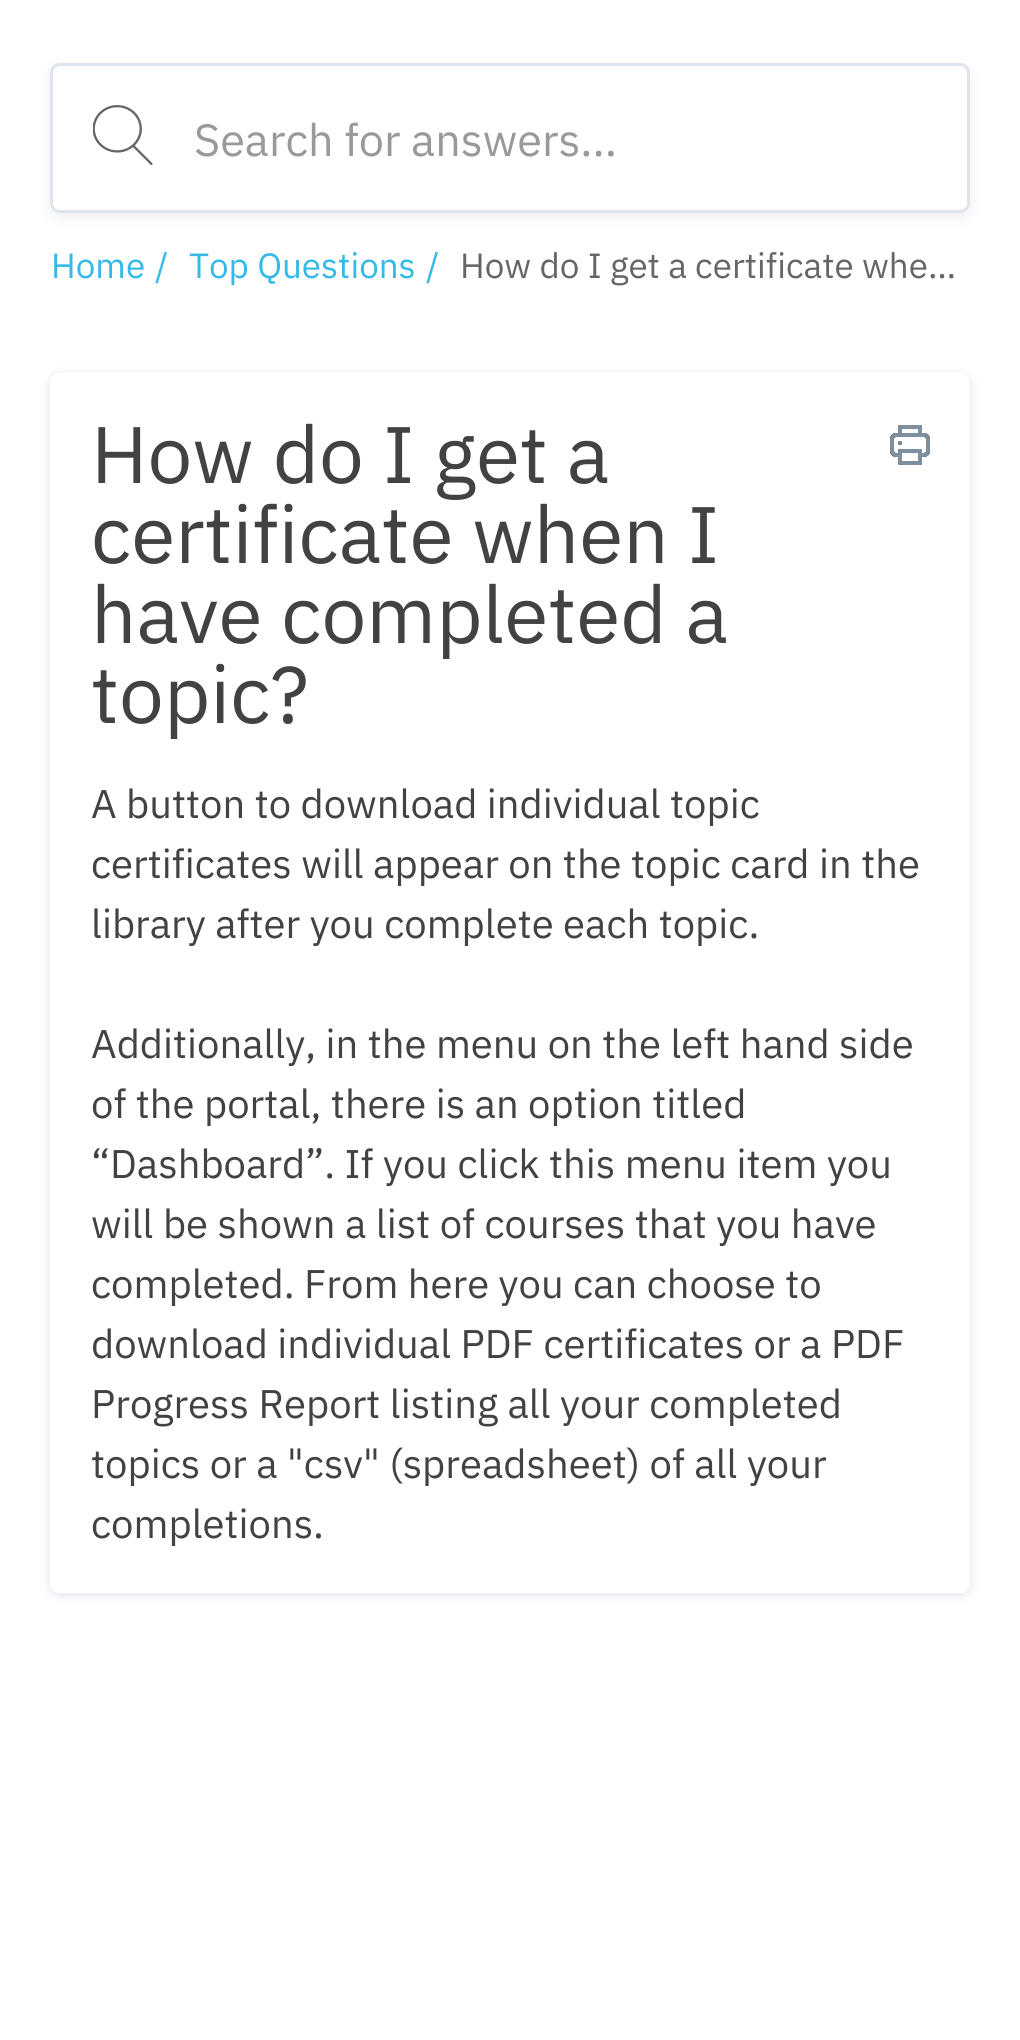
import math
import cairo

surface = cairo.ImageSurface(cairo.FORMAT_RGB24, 1020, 2040)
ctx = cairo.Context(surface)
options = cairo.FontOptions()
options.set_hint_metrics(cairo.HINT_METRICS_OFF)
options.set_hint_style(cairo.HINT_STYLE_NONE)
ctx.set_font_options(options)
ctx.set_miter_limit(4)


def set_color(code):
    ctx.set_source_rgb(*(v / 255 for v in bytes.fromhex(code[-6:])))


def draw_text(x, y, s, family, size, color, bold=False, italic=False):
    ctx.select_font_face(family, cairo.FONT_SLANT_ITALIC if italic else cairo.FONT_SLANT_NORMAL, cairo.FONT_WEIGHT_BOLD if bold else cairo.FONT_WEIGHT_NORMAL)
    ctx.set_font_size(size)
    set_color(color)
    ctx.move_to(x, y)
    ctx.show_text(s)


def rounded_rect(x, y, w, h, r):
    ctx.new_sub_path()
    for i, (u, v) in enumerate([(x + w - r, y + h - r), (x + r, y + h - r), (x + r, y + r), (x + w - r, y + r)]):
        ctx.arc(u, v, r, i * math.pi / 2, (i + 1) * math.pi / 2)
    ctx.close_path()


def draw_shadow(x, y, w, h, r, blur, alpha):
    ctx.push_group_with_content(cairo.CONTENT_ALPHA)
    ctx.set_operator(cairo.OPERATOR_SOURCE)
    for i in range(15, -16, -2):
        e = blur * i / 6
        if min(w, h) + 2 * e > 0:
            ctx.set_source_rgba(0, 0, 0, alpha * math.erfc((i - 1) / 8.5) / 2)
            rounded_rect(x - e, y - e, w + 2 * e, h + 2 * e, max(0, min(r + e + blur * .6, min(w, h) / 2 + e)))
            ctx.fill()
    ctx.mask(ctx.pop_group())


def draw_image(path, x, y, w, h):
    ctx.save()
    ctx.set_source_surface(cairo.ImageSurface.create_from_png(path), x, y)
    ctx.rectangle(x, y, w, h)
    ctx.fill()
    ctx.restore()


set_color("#ffffff")
ctx.paint()
set_color("#000000")
draw_shadow(50, 68, 920, 150, 10, 7.5, 0.07)
set_color("#ffffff")
rounded_rect(51.5, 64.5, 917, 147, 8.5)
ctx.fill_preserve()
set_color("#dfe5ee")
ctx.set_line_width(3)
ctx.stroke()
draw_image("assets/img1.png", 93, 105, 60, 60)
draw_text(194, 156, "Search for answers...", "IBM Plex Sans", 45, "#999999")
draw_text(51, 278, "Home", "IBM Plex Sans", 35, "#34b9e9")
draw_text(155, 278, "/", "IBM Plex Sans", 35, "#34b9e9")
draw_text(189, 278, "Top Questions", "IBM Plex Sans", 35, "#34b9e9")
draw_text(426, 278, "/", "IBM Plex Sans", 35, "#34b9e9")
draw_text(460, 278, "How do I get a certificate whe…", "IBM Plex Sans", 35, "#666666")
set_color("#dfe5ee")
draw_shadow(50, 375, 920, 1220, 10, 5, 1)
set_color("#ffffff")
rounded_rect(50, 373, 920, 1220, 10)
ctx.fill()
draw_text(91, 483, "How do I get a", "IBM Plex Sans", 80, "#424242")
draw_text(91, 563, "certificate when I", "IBM Plex Sans", 80, "#424242")
draw_text(91, 643, "have completed a", "IBM Plex Sans", 80, "#424242")
draw_text(91, 723, "topic?", "IBM Plex Sans", 80, "#424242")
draw_image("assets/img2.png", 890, 425, 40, 40)
draw_text(91, 818, "A button to download individual topic", "IBM Plex Sans", 40, "#424242")
draw_text(91, 878, "certificates will appear on the topic card in the", "IBM Plex Sans", 40, "#424242")
draw_text(91, 938, "library after you complete each topic.", "IBM Plex Sans", 40, "#424242")
draw_text(91, 1058, "Additionally, in the menu on the left hand side", "IBM Plex Sans", 40, "#424242")
draw_text(91, 1118, "of the portal, there is an option titled", "IBM Plex Sans", 40, "#424242")
draw_text(91, 1178, "“Dashboard”. If you click this menu item you", "IBM Plex Sans", 40, "#424242")
draw_text(91, 1238, "will be shown a list of courses that you have", "IBM Plex Sans", 40, "#424242")
draw_text(91, 1298, "completed. From here you can choose to", "IBM Plex Sans", 40, "#424242")
draw_text(91, 1358, "download individual PDF certificates or a PDF", "IBM Plex Sans", 40, "#424242")
draw_text(91, 1418, "Progress Report listing all your completed", "IBM Plex Sans", 40, "#424242")
draw_text(91, 1478, "topics or a \"csv\" (spreadsheet) of all your", "IBM Plex Sans", 40, "#424242")
draw_text(91, 1538, "completions.", "IBM Plex Sans", 40, "#424242")
surface.write_to_png("output.png")
